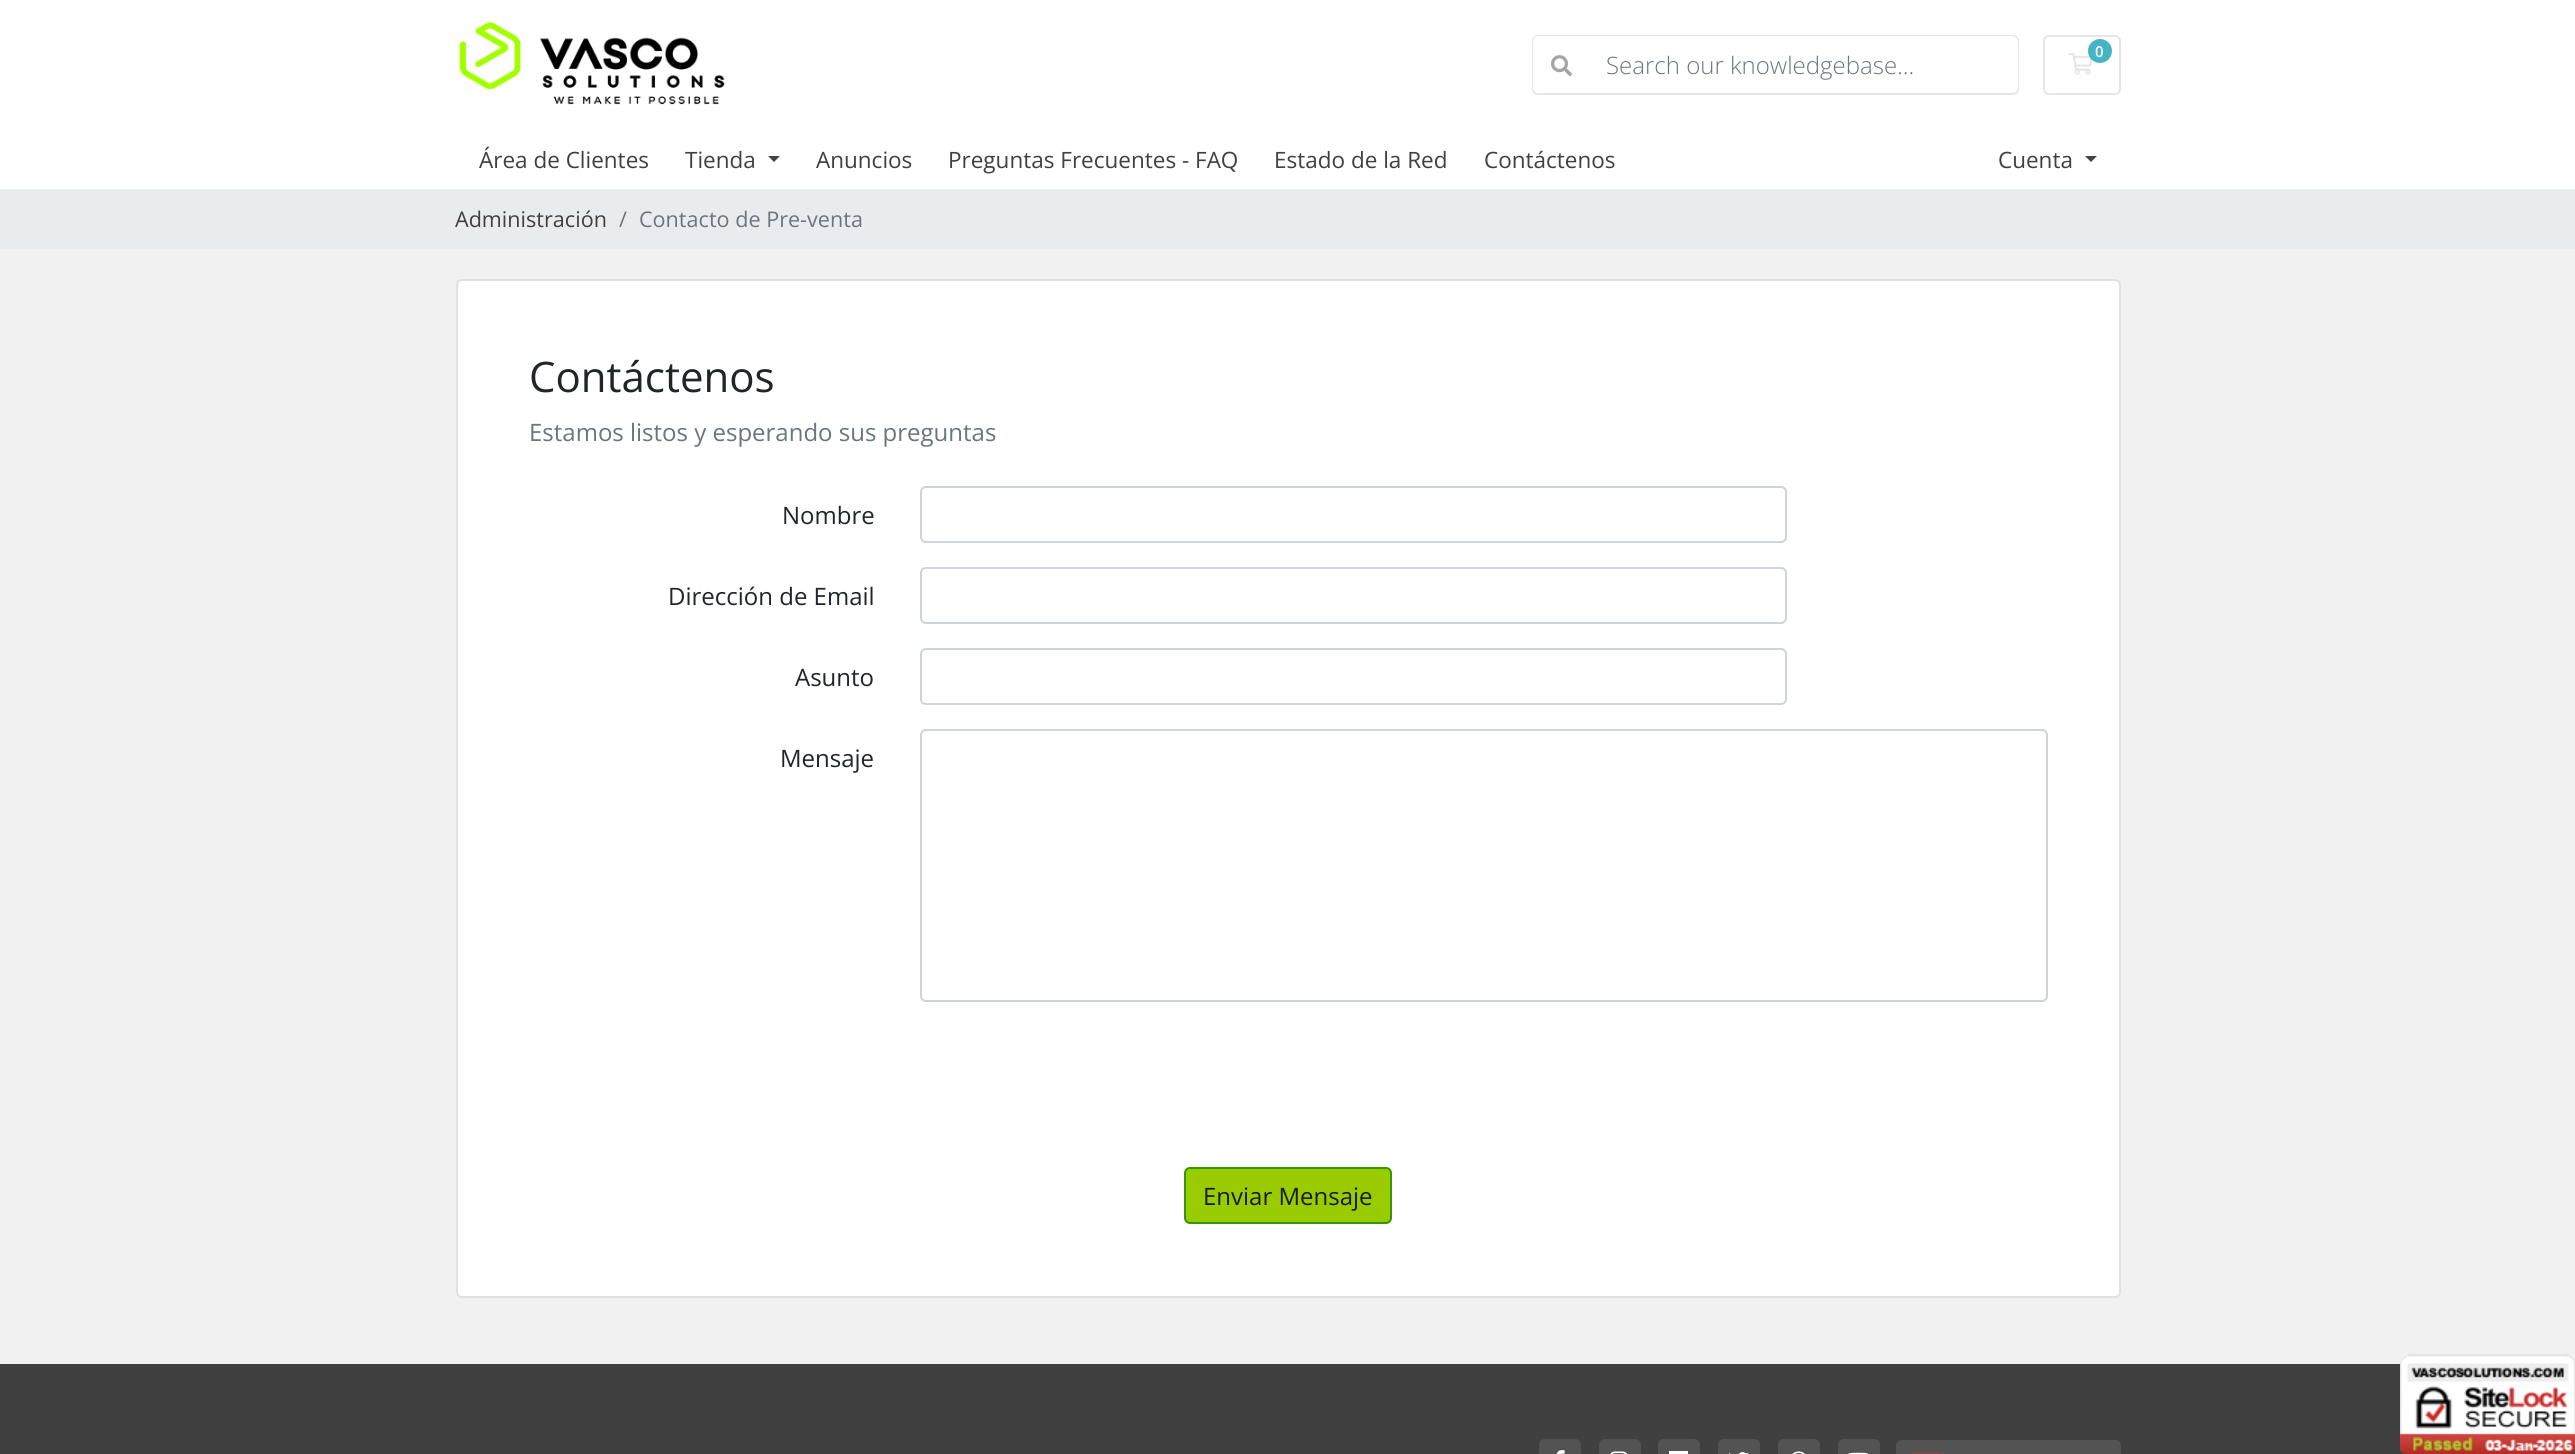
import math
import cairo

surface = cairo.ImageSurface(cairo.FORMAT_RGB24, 2575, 1454)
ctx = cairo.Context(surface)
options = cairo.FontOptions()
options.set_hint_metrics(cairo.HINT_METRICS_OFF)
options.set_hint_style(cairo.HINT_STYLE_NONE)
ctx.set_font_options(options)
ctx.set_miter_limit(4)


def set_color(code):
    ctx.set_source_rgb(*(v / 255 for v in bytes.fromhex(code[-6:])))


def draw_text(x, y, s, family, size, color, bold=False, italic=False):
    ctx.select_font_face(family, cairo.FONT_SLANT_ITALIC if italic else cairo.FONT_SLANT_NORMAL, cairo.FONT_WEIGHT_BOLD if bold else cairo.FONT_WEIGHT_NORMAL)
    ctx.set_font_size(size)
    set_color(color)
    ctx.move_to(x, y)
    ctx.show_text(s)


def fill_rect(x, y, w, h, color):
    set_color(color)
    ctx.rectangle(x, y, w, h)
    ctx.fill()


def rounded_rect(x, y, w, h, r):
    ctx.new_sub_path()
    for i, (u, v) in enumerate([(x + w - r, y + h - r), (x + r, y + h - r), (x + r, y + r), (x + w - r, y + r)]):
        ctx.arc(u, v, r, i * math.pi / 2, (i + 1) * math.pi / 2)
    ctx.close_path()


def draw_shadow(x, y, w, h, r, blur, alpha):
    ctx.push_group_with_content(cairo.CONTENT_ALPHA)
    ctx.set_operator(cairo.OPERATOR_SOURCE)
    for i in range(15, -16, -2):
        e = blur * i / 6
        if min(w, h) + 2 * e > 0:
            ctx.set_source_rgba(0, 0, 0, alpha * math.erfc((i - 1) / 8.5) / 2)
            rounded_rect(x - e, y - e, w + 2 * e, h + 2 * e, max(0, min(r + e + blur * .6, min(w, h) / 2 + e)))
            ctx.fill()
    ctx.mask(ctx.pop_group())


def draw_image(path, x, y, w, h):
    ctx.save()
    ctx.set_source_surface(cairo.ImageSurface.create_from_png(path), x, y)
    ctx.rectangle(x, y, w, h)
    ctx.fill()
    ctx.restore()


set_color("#f1f1f1")
ctx.paint()
fill_rect(0, 0, 2575, 189, "#ffffff")
draw_image("assets/img1.png", 459, 22, 266, 83)
rounded_rect(2044, 36, 76, 58, 5)
set_color("#e5e5e5")
ctx.stroke()
draw_image("assets/img2.png", 2068, 53, 25, 22)
ctx.set_source_rgba(0.09, 0.635, 0.722, 0.8)
ctx.arc(2100, 51, 12, 0, 2 * math.pi)
ctx.fill()
draw_text(2095, 57, "0", "Open Sans SemiBold", 15, "#ffffff")
rounded_rect(1533, 36, 485, 58, 5)
set_color("#e5e5e5")
ctx.stroke()
set_color("#ffffff")
ctx.new_path()
ctx.move_to(1589, 36)
ctx.line_to(2012, 36)
ctx.curve_to(2015.5, 36, 2018, 38.5, 2018, 42)
ctx.line_to(2018, 87)
ctx.curve_to(2018, 90.5, 2015.5, 93, 2012, 93)
ctx.line_to(1589, 93)
ctx.close_path()
ctx.fill()
ctx.new_path()
ctx.move_to(1539, 36)
ctx.line_to(1590, 36)
ctx.line_to(1590, 93)
ctx.line_to(1539, 93)
ctx.curve_to(1535.5, 93, 1533, 90.5, 1533, 87)
ctx.line_to(1533, 42)
ctx.curve_to(1533, 38.5, 1535.5, 36, 1539, 36)
ctx.close_path()
ctx.fill()
draw_image("assets/img3.png", 1551, 55, 21, 22)
draw_text(1606, 74, "Search our knowledgebase...", "Open Sans Light", 24, "#6c757d")
draw_text(479, 168, "Área de Clientes", "Open Sans", 22.5, "#404040")
draw_text(685, 168, "Tienda", "Open Sans", 22.5, "#404040")
set_color("#444444")
ctx.new_path()
ctx.move_to(768, 156)
ctx.line_to(780, 156)
ctx.line_to(774, 162)
ctx.close_path()
ctx.fill()
draw_text(816, 168, "Anuncios", "Open Sans", 22.5, "#404040")
draw_text(948, 168, "Preguntas Frecuentes - FAQ", "Open Sans", 22.5, "#404040")
draw_text(1274, 168, "Estado de la Red", "Open Sans", 22.5, "#404040")
draw_text(1484, 168, "Contáctenos", "Open Sans", 22.5, "#404040")
draw_text(1998, 168, "Cuenta", "Open Sans", 22.5, "#404040")
set_color("#444444")
ctx.new_path()
ctx.move_to(2085, 156)
ctx.line_to(2097, 156)
ctx.line_to(2091, 162)
ctx.close_path()
ctx.fill()
fill_rect(0, 189, 2575, 60, "#e9ecef")
draw_text(455, 227, "Administración", "Open Sans", 21.6, "#404040")
draw_text(619, 227, "/", "Open Sans", 21.6, "#6c757d")
draw_text(639, 227, "Contacto de Pre-venta", "Open Sans", 21.6, "#6c757d")
set_color("#ffffff")
rounded_rect(456, 279, 1665, 1019, 6)
ctx.fill()
rounded_rect(457, 280, 1663, 1017, 5)
ctx.set_source_rgba(0, 0, 0, 0.12)
ctx.stroke()
draw_text(529, 392, "Contáctenos", "Open Sans", 42, "#212529")
draw_text(529, 441, "Estamos listos y esperando sus preguntas", "Open Sans", 24, "#6c757d")
draw_text(782, 524, "Nombre", "Open Sans", 24, "#212529")
rounded_rect(921, 487, 865, 55, 5)
set_color("#ced4da")
ctx.stroke()
draw_text(668, 605, "Dirección de Email", "Open Sans", 24, "#212529")
rounded_rect(921, 568, 865, 55, 5)
set_color("#ced4da")
ctx.stroke()
draw_text(795, 686, "Asunto", "Open Sans", 24, "#212529")
rounded_rect(921, 649, 865, 55, 5)
set_color("#ced4da")
ctx.stroke()
draw_text(780, 767, "Mensaje", "Open Sans", 24, "#212529")
rounded_rect(921, 730, 1126, 271, 5)
set_color("#ced4da")
ctx.stroke()
set_color("#99cc00")
rounded_rect(1185, 1168, 206, 55, 5)
ctx.fill_preserve()
set_color("#339900")
ctx.stroke()
draw_text(1203, 1205, "Enviar Mensaje", "Open Sans", 24, "#1a1a1a")
fill_rect(0, 1364, 2575, 90, "#404040")
set_color("#535353")
rounded_rect(1539, 1439, 42, 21, 6)
ctx.fill()
draw_image("assets/img4.png", 1556, 1450, 9, 4)
rounded_rect(1599, 1439, 42, 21, 6)
ctx.fill()
draw_image("assets/img5.png", 1610, 1451, 17, 3)
rounded_rect(1658, 1439, 42, 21, 6)
ctx.fill()
fill_rect(1669, 1451, 19, 3, "#ffffff")
set_color("#535353")
rounded_rect(1718, 1439, 42, 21, 6)
ctx.fill()
draw_image("assets/img6.png", 1729, 1452, 20, 2)
rounded_rect(1778, 1439, 42, 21, 6)
ctx.fill()
draw_image("assets/img7.png", 1792, 1451, 13, 3)
rounded_rect(1838, 1439, 42, 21, 6)
ctx.fill()
draw_image("assets/img8.png", 1848, 1452, 21, 2)
rounded_rect(1896, 1440, 225, 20, 6)
ctx.fill()
set_color("#888888")
draw_shadow(1913, 1454, 30, 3, 0, 1, 1)
draw_image("assets/img9.png", 1912, 1453, 31, 1)
draw_image("assets/img10.png", 2400, 1354, 175, 100)
surface.write_to_png("output.png")
